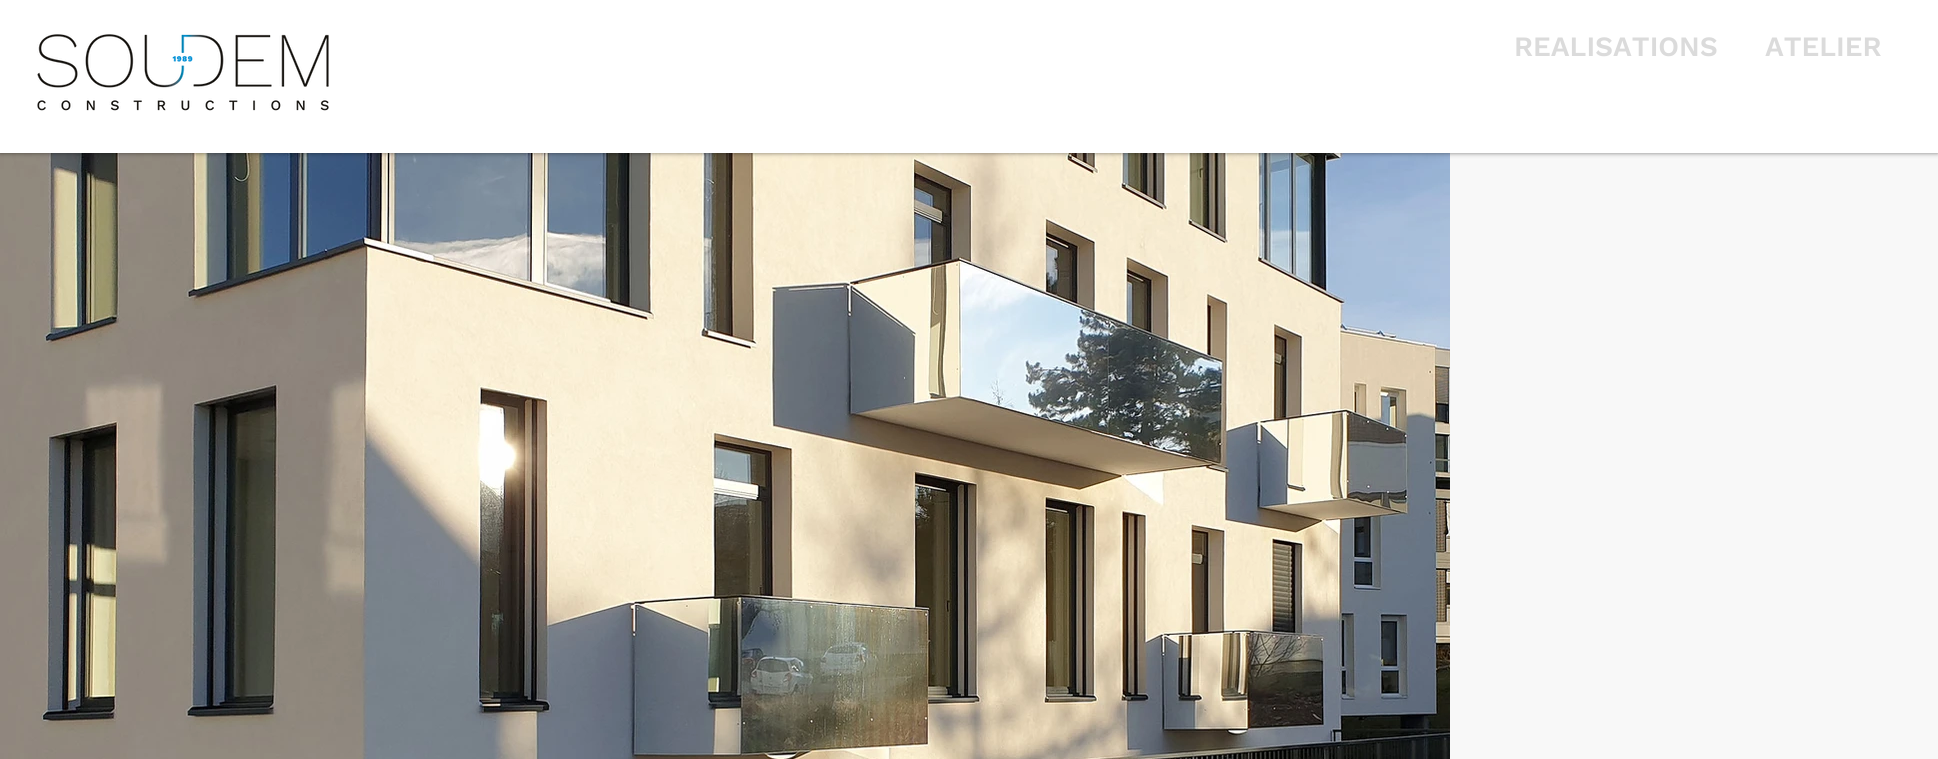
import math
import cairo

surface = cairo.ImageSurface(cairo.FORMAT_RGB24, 1938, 759)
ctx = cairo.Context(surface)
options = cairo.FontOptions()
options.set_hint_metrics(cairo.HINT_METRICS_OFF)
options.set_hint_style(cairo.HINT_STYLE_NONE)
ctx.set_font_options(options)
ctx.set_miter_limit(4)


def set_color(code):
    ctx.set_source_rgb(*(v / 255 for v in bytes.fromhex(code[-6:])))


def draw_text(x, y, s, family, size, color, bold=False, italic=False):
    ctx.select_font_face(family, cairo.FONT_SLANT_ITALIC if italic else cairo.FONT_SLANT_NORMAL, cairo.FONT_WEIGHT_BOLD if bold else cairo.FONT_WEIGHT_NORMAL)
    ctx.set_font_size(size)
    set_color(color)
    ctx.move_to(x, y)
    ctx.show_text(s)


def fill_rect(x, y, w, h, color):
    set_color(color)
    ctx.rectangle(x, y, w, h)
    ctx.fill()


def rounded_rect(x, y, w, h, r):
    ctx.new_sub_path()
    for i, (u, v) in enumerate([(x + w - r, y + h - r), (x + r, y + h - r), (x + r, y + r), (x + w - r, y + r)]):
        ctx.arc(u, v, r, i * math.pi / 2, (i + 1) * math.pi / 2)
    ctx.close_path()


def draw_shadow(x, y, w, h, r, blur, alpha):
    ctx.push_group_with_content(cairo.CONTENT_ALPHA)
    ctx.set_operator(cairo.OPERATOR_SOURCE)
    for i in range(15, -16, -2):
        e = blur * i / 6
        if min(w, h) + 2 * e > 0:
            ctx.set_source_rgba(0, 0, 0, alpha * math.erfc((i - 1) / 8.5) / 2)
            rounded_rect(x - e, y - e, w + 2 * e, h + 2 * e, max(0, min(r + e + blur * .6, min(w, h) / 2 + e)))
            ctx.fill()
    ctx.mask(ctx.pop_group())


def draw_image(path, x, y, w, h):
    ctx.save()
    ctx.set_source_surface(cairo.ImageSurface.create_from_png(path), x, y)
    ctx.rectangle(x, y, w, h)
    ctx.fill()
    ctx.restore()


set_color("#f8f8f8")
ctx.paint()
draw_image("assets/img2.png", 0, 153, 1450, 606)
set_color("#000000")
draw_shadow(0, 0, 1938, 153, 0, 2.5, 0.5)
fill_rect(0, 0, 1938, 153, "#ffffff")
draw_image("assets/img1.png", 37, 34, 292, 77)
draw_text(1514, 56, "REALISATIONS", "Work Sans SemiBold", 28, "#dbdbdb")
draw_text(1765, 56, "ATELIER", "Work Sans SemiBold", 28, "#dbdbdb")
surface.write_to_png("output.png")
